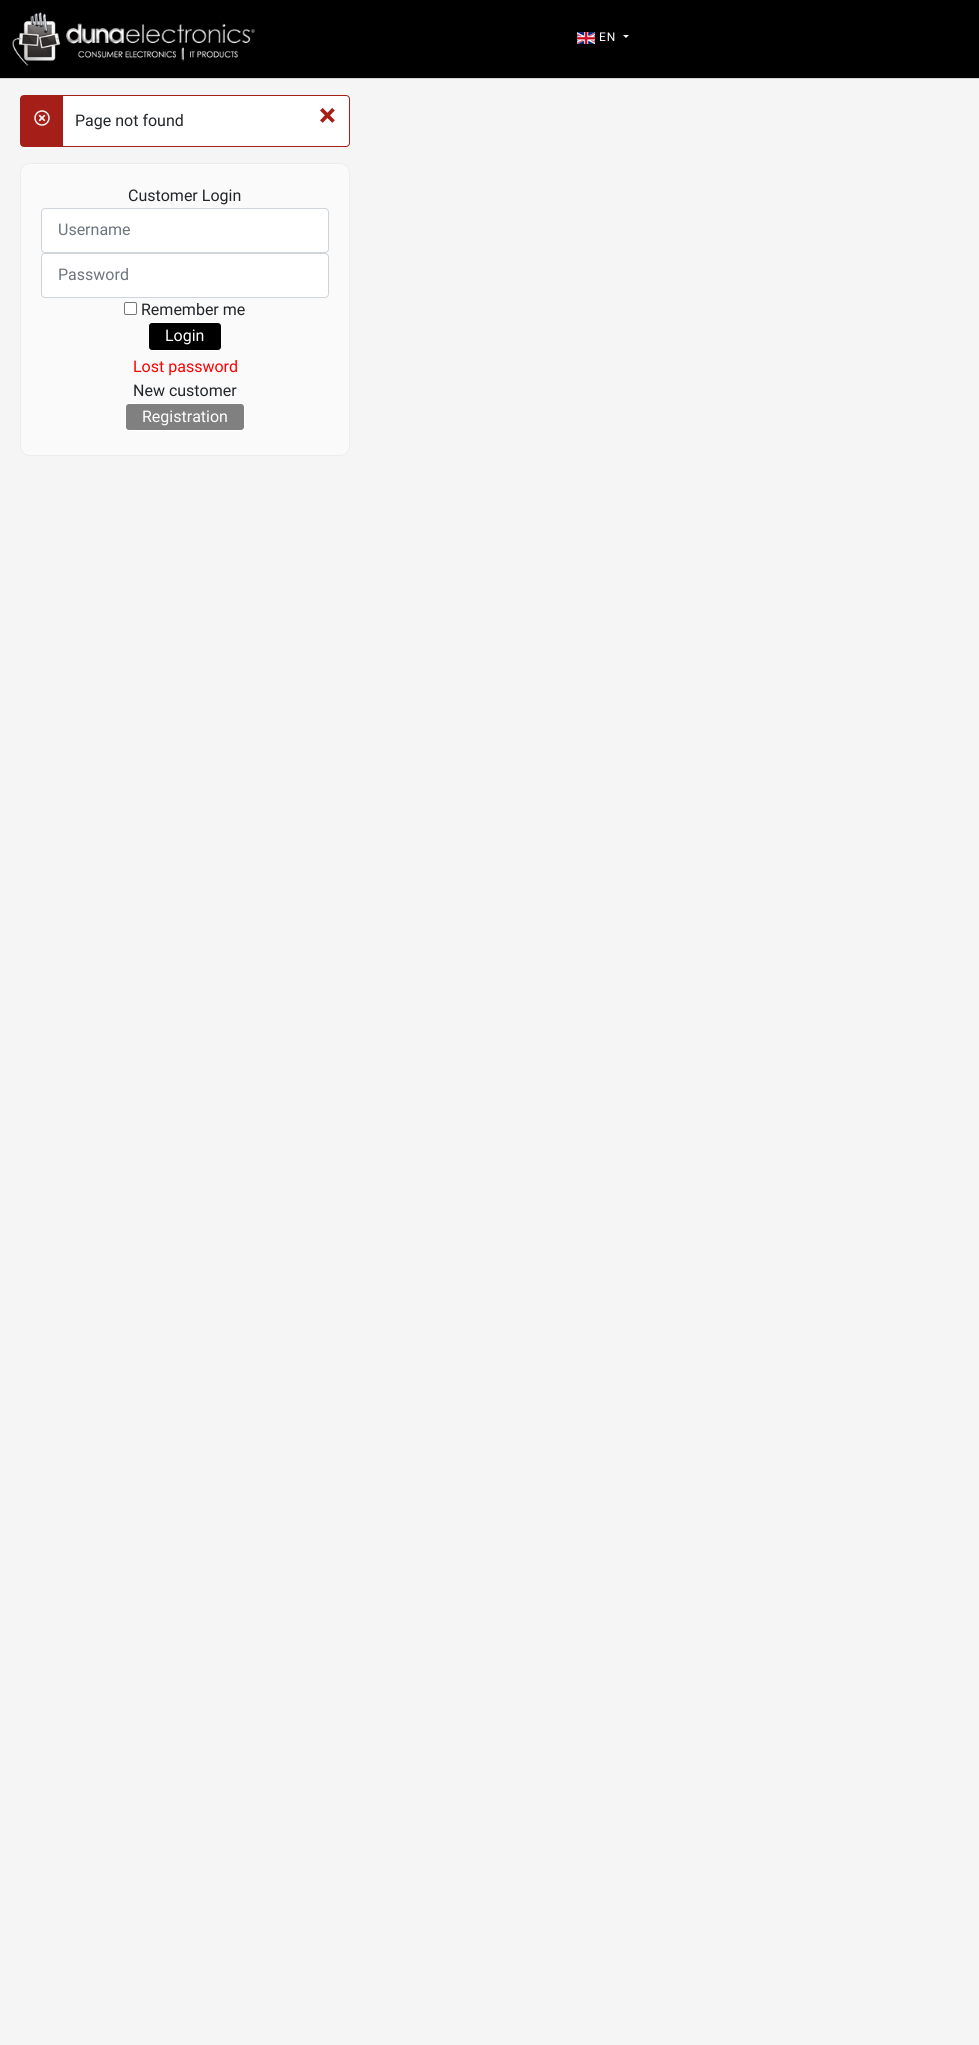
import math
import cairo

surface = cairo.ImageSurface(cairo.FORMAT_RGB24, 979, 2045)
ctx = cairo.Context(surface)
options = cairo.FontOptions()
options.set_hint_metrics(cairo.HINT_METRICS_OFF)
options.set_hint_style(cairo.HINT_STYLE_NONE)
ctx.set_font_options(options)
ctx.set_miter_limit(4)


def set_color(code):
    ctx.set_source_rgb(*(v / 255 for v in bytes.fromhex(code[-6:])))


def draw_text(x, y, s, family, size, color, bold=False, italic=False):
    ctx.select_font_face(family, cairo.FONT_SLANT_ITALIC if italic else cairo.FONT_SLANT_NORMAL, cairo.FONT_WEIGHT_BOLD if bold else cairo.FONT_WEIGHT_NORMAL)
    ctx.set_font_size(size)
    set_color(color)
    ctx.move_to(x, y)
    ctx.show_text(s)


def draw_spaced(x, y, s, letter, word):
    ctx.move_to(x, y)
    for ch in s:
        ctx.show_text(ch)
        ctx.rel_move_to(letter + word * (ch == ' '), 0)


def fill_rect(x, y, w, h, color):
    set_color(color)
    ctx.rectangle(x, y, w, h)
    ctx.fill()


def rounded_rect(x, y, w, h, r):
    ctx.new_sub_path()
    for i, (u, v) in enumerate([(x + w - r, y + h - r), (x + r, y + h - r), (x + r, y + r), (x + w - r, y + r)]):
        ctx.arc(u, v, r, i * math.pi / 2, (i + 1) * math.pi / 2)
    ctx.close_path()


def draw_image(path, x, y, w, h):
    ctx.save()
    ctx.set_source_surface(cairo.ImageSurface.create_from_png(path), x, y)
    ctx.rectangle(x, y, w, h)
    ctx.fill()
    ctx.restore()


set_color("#f5f5f5")
ctx.paint()
fill_rect(0, 0, 979, 78, "#000000")
fill_rect(0, 78, 979, 1, "#d3d3d3")
draw_image("assets/img1.png", 12, 12, 243, 54)
draw_image("assets/img2.png", 577, 32, 18, 12)
ctx.select_font_face("Roboto")
ctx.set_font_size(12)
set_color("#ffffff")
draw_spaced(599, 41, "EN", 1, 0)
ctx.new_path()
ctx.move_to(623, 35)
ctx.line_to(629, 35)
ctx.line_to(626, 38)
ctx.close_path()
ctx.fill()
rounded_rect(20.5, 95.5, 329, 51, 3.5)
ctx.fill_preserve()
set_color("#a51f18")
ctx.set_line_width(1)
ctx.stroke()
fill_rect(21, 96, 42, 50, "#a51f18")
draw_image("assets/img3.png", 34, 110, 16, 16)
draw_text(75, 126, "Page not found", "Roboto", 16, "#22262a")
draw_text(319, 126, "×", "Roboto", 32, "#a51f18", bold=True)
set_color("#fafafa")
rounded_rect(20.5, 163.5, 329, 292, 9.5)
ctx.fill_preserve()
set_color("#ebedf0")
ctx.stroke()
draw_text(128, 201, "Customer Login", "Roboto", 16, "#22262a")
set_color("#ffffff")
rounded_rect(41.5, 208.5, 287, 44, 3.5)
ctx.fill_preserve()
set_color("#ced4da")
ctx.stroke()
draw_text(58, 235, "Username", "Roboto", 16, "#6d757e")
set_color("#ffffff")
rounded_rect(41.5, 253.5, 287, 44, 3.5)
ctx.fill_preserve()
set_color("#ced4da")
ctx.stroke()
draw_text(58, 280, "Password", "Roboto", 16, "#6d757e")
set_color("#ffffff")
rounded_rect(124.5, 302.5, 12, 12, 1.5)
ctx.fill_preserve()
set_color("#767676")
ctx.stroke()
draw_text(141, 315, "Remember me", "Roboto", 16, "#22262a")
set_color("#000000")
rounded_rect(148.5, 322.5, 73, 28, 3.5)
ctx.fill_preserve()
set_color("#ffffff")
ctx.stroke()
draw_text(165, 341, "Login", "Roboto", 16, "#ffffff")
draw_text(133, 372, "Lost password", "Roboto", 16, "#ff0000")
draw_text(133, 396, "New customer", "Roboto", 16, "#22262a")
set_color("#808080")
rounded_rect(125.5, 403.5, 119, 27, 3.5)
ctx.fill_preserve()
set_color("#ffffff")
ctx.stroke()
draw_text(142, 422, "Registration", "Roboto", 16, "#ffffff")
surface.write_to_png("output.png")
